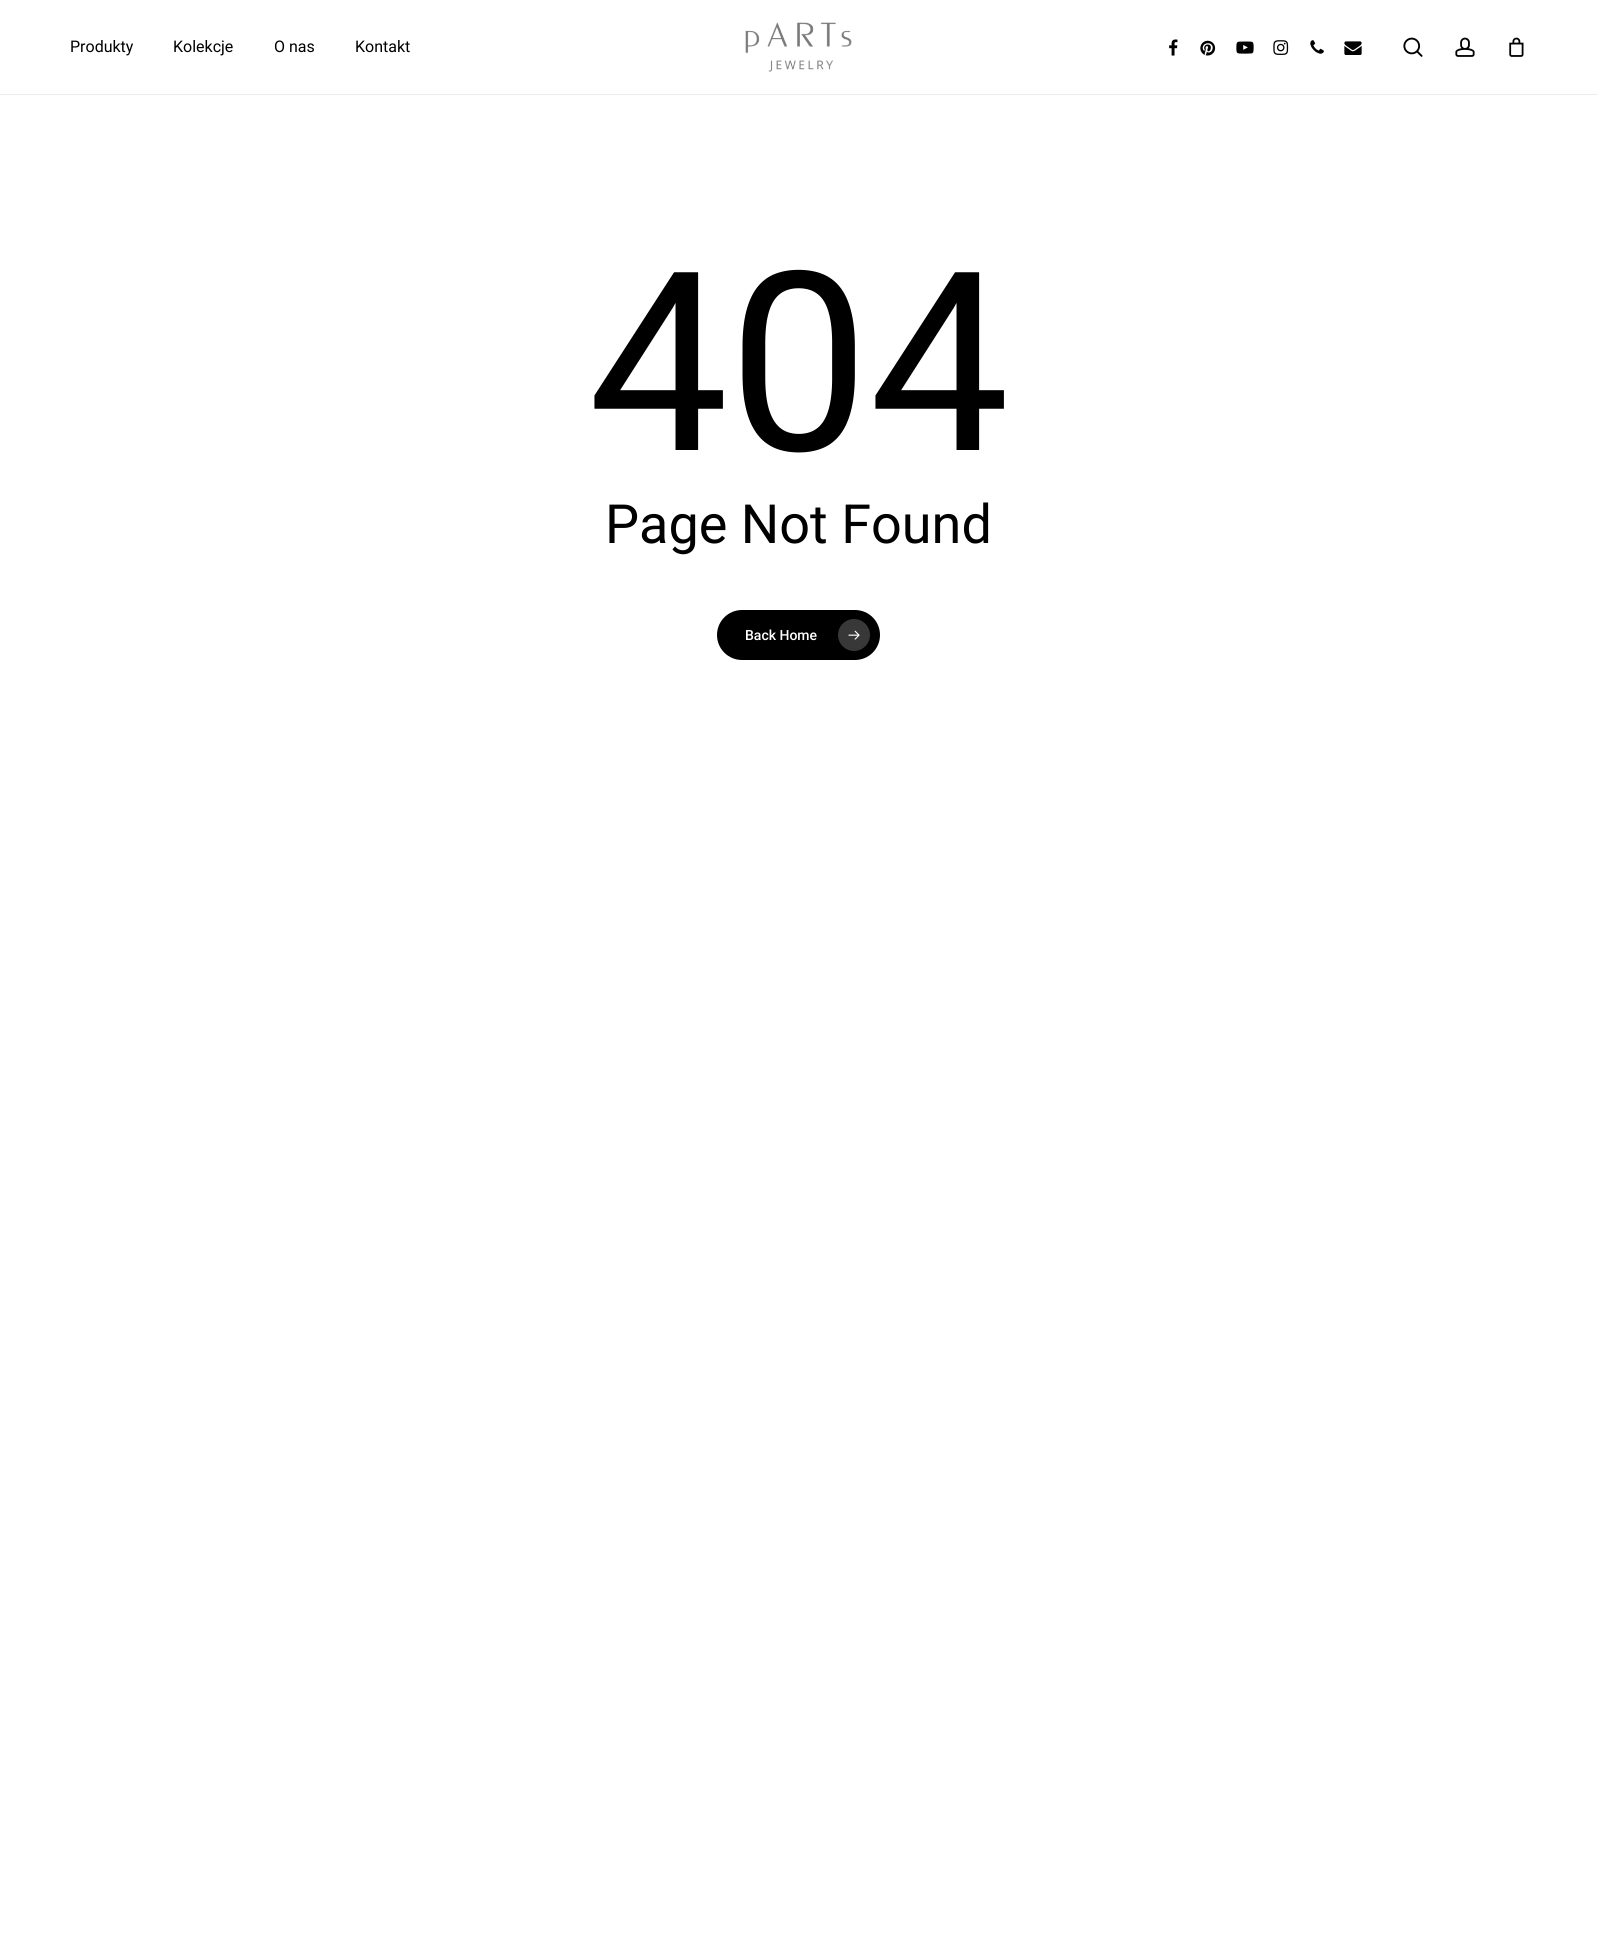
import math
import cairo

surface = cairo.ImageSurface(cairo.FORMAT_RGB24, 1597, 1951)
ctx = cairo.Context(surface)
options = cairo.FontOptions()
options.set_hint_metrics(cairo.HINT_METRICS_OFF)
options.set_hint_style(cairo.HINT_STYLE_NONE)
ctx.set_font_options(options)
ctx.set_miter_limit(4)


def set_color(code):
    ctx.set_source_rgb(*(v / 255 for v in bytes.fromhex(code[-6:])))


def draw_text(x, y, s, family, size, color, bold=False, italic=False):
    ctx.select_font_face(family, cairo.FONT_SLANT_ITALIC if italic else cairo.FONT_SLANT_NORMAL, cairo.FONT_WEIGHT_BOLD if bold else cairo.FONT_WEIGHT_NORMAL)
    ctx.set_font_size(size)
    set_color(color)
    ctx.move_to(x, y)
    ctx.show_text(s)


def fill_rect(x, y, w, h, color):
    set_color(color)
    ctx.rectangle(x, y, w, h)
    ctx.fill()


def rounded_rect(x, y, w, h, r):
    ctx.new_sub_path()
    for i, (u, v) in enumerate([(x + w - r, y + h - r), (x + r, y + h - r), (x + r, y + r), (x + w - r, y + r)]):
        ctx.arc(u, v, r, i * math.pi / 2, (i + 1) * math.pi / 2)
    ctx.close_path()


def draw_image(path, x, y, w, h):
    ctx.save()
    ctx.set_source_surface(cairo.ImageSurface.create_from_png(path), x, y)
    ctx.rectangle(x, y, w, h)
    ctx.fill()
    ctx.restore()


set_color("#ffffff")
ctx.paint()
fill_rect(0, 94, 1597, 1, "#ebebeb")
draw_text(70, 52, "Produkty", "Roboto", 16, "#000000")
draw_text(173, 52, "Kolekcje", "Roboto", 16, "#000000")
draw_text(274, 52, "O nas", "Roboto", 16, "#000000")
draw_text(355, 52, "Kontakt", "Roboto", 16, "#000000")
draw_image("assets/img1.png", 745, 22, 107, 50)
draw_image("assets/img2.png", 1169, 39, 9, 17)
draw_image("assets/img3.png", 1200, 40, 16, 16)
draw_image("assets/img4.png", 1236, 41, 18, 13)
draw_image("assets/img5.png", 1273, 40, 16, 15)
draw_image("assets/img6.png", 1310, 40, 14, 14)
draw_image("assets/img7.png", 1344, 41, 18, 14)
draw_image("assets/img8.png", 1403, 37, 20, 20)
draw_image("assets/img9.png", 1455, 37, 20, 20)
draw_image("assets/img10.png", 1509, 37, 15, 20)
draw_text(588, 450, "404", "Roboto", 250, "#000000")
draw_text(605, 543, "Page Not Found", "Roboto", 54, "#000000")
rounded_rect(717, 610, 163, 50, 25)
ctx.fill()
draw_text(745, 640, "Back Home", "Roboto Medium", 14, "#ffffff")
set_color("#383838")
ctx.new_path()
ctx.arc(854, 635, 16, 0, 2 * math.pi)
ctx.fill()
draw_image("assets/img11.png", 848, 630, 12, 10)
surface.write_to_png("output.png")
